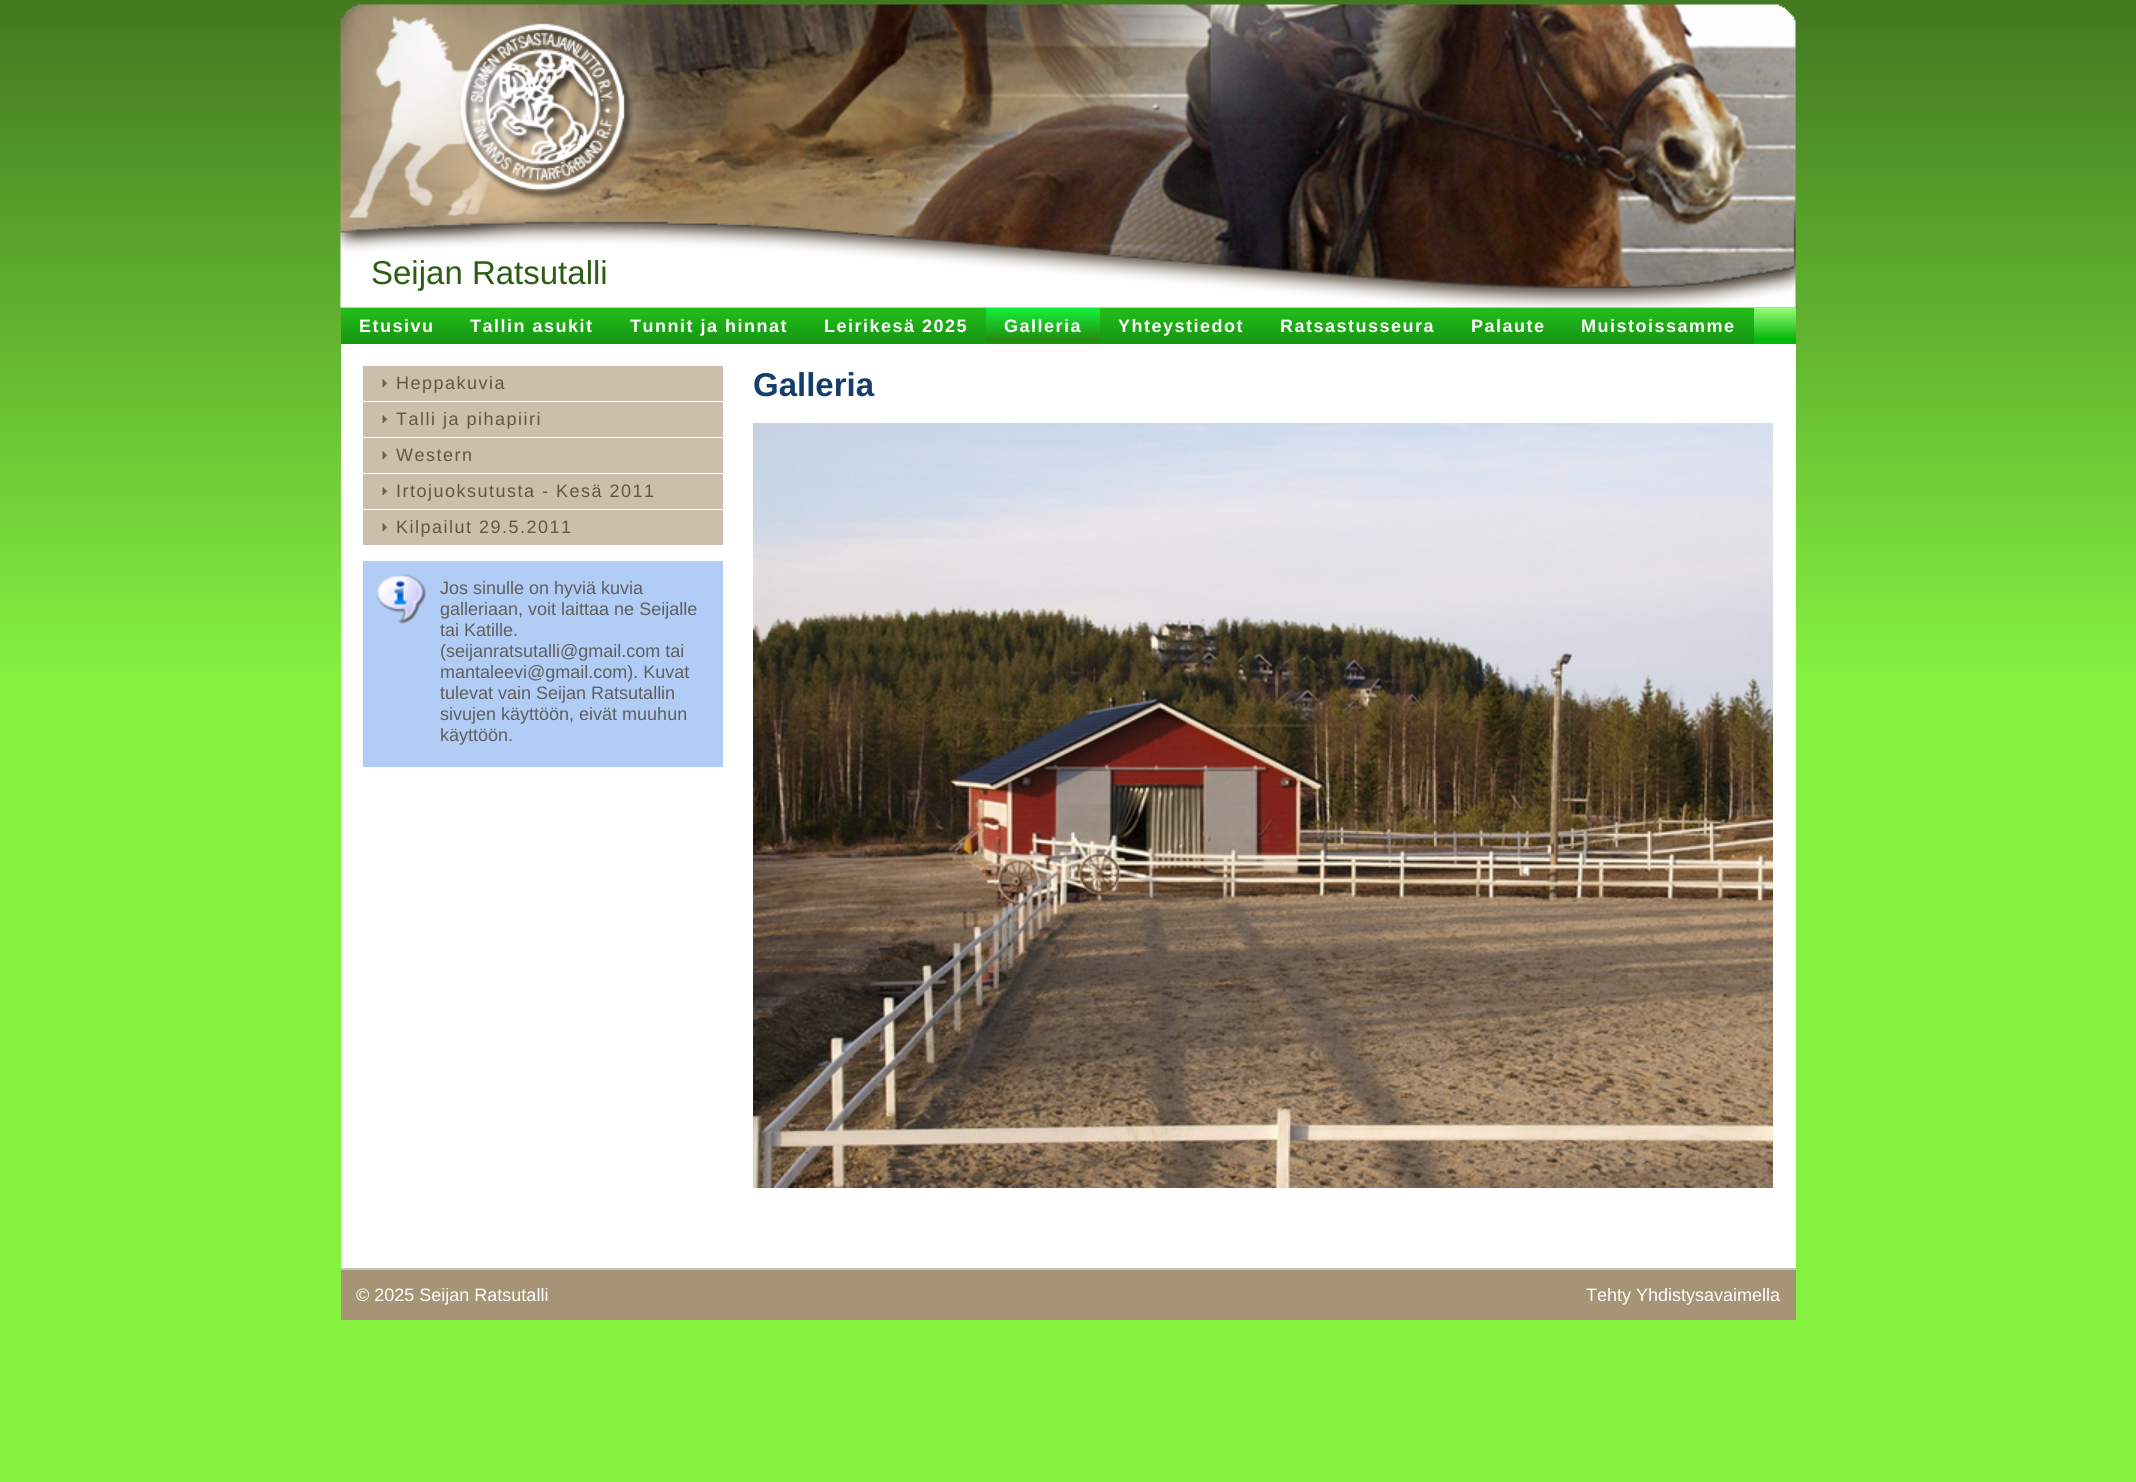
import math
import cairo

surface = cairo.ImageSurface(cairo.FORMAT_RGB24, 2136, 1482)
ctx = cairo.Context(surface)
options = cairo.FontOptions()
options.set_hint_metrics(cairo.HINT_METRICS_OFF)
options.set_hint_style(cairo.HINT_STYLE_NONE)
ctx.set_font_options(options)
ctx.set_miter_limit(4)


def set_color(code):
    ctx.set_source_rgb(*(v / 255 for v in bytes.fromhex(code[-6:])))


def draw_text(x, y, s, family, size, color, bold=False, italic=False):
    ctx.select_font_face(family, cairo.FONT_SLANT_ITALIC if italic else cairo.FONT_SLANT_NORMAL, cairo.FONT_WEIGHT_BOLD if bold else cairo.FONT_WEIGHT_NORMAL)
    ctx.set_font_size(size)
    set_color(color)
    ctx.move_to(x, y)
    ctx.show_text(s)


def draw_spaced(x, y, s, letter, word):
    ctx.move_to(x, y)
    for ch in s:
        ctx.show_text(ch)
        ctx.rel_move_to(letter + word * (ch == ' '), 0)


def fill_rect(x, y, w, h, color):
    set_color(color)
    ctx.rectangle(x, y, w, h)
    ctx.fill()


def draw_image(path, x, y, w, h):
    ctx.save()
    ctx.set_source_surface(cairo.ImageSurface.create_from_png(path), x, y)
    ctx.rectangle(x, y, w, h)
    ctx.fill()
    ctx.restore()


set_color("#ffffff")
ctx.paint()
gradient = cairo.LinearGradient(1068, 0, 1068, 1482)
gradient.add_color_stop_rgba(0, 0.259, 0.475, 0.125, 1)
gradient.add_color_stop_rgba(0.46, 0.522, 0.949, 0.251, 1)
gradient.add_color_stop_rgba(1, 0.522, 0.949, 0.251, 1)
ctx.set_source(gradient)
ctx.rectangle(0, 0, 2136, 1482)
ctx.fill()
draw_image("assets/img1.png", 340, 4, 1456, 304)
draw_text(371, 284, "Seijan Ratsutalli", "Liberation Sans", 33, "#2a5e12")
gradient = cairo.LinearGradient(1068, 307, 1068, 344)
gradient.add_color_stop_rgba(0, 0.6, 1, 0.471, 1)
gradient.add_color_stop_rgba(0.87, 0.024, 0.718, 0.047, 1)
gradient.add_color_stop_rgba(1, 0.024, 0.718, 0.047, 1)
ctx.set_source(gradient)
ctx.rectangle(1754, 308, 42, 36)
ctx.fill()
gradient = cairo.LinearGradient(396, 308, 396, 344)
gradient.add_color_stop_rgba(0, 0.137, 0.745, 0.098, 1)
gradient.add_color_stop_rgba(0.87, 0.09, 0.604, 0.075, 1)
gradient.add_color_stop_rgba(1, 0.09, 0.604, 0.075, 1)
ctx.set_source(gradient)
ctx.rectangle(341, 308, 111, 36)
ctx.fill()
ctx.select_font_face("Liberation Sans", cairo.FONT_SLANT_NORMAL, cairo.FONT_WEIGHT_BOLD)
ctx.set_font_size(18)
set_color("#ffffff")
draw_spaced(359, 332, "Etusivu", 1.5, 0)
gradient = cairo.LinearGradient(532, 308, 532, 344)
gradient.add_color_stop_rgba(0, 0.137, 0.745, 0.098, 1)
gradient.add_color_stop_rgba(0.87, 0.09, 0.604, 0.075, 1)
gradient.add_color_stop_rgba(1, 0.09, 0.604, 0.075, 1)
ctx.set_source(gradient)
ctx.rectangle(452, 308, 160, 36)
ctx.fill()
set_color("#ffffff")
draw_spaced(470, 332, "Tallin asukit", 1.5, 0)
gradient = cairo.LinearGradient(709, 308, 709, 344)
gradient.add_color_stop_rgba(0, 0.137, 0.745, 0.098, 1)
gradient.add_color_stop_rgba(0.87, 0.09, 0.604, 0.075, 1)
gradient.add_color_stop_rgba(1, 0.09, 0.604, 0.075, 1)
ctx.set_source(gradient)
ctx.rectangle(612, 308, 194, 36)
ctx.fill()
set_color("#ffffff")
draw_spaced(630, 332, "Tunnit ja hinnat", 1.5, 0)
gradient = cairo.LinearGradient(896, 308, 896, 344)
gradient.add_color_stop_rgba(0, 0.137, 0.745, 0.098, 1)
gradient.add_color_stop_rgba(0.87, 0.09, 0.604, 0.075, 1)
gradient.add_color_stop_rgba(1, 0.09, 0.604, 0.075, 1)
ctx.set_source(gradient)
ctx.rectangle(806, 308, 180, 36)
ctx.fill()
set_color("#ffffff")
draw_spaced(824, 332, "Leirikesä 2025", 1.5, 0)
gradient = cairo.LinearGradient(1043, 308, 1043, 344)
gradient.add_color_stop_rgba(0, 0.075, 0.945, 0.239, 1)
gradient.add_color_stop_rgba(0.87, 0.141, 0.557, 0.063, 1)
gradient.add_color_stop_rgba(1, 0.141, 0.557, 0.063, 1)
ctx.set_source(gradient)
ctx.rectangle(986, 308, 114, 36)
ctx.fill()
set_color("#ffffff")
draw_spaced(1004, 332, "Galleria", 1.5, 0)
gradient = cairo.LinearGradient(1181, 308, 1181, 344)
gradient.add_color_stop_rgba(0, 0.137, 0.745, 0.098, 1)
gradient.add_color_stop_rgba(0.87, 0.09, 0.604, 0.075, 1)
gradient.add_color_stop_rgba(1, 0.09, 0.604, 0.075, 1)
ctx.set_source(gradient)
ctx.rectangle(1100, 308, 162, 36)
ctx.fill()
set_color("#ffffff")
draw_spaced(1118, 332, "Yhteystiedot", 1.5, 0)
gradient = cairo.LinearGradient(1358, 308, 1358, 344)
gradient.add_color_stop_rgba(0, 0.137, 0.745, 0.098, 1)
gradient.add_color_stop_rgba(0.87, 0.09, 0.604, 0.075, 1)
gradient.add_color_stop_rgba(1, 0.09, 0.604, 0.075, 1)
ctx.set_source(gradient)
ctx.rectangle(1262, 308, 192, 36)
ctx.fill()
set_color("#ffffff")
draw_spaced(1280, 332, "Ratsastusseura", 1.5, 0)
gradient = cairo.LinearGradient(1508, 308, 1508, 344)
gradient.add_color_stop_rgba(0, 0.137, 0.745, 0.098, 1)
gradient.add_color_stop_rgba(0.87, 0.09, 0.604, 0.075, 1)
gradient.add_color_stop_rgba(1, 0.09, 0.604, 0.075, 1)
ctx.set_source(gradient)
ctx.rectangle(1454, 308, 109, 36)
ctx.fill()
set_color("#ffffff")
draw_spaced(1471, 332, "Palaute", 1.5, 0)
gradient = cairo.LinearGradient(1658, 308, 1658, 344)
gradient.add_color_stop_rgba(0, 0.137, 0.745, 0.098, 1)
gradient.add_color_stop_rgba(0.87, 0.09, 0.604, 0.075, 1)
gradient.add_color_stop_rgba(1, 0.09, 0.604, 0.075, 1)
ctx.set_source(gradient)
ctx.rectangle(1563, 308, 191, 36)
ctx.fill()
set_color("#ffffff")
draw_spaced(1581, 332, "Muistoissamme", 1.5, 0)
fill_rect(341, 344, 1455, 924, "#ffffff")
fill_rect(363, 366, 360, 35, "#cbbeaa")
draw_image("assets/img2.png", 382, 379, 6, 8)
ctx.select_font_face("Liberation Sans")
set_color("#665443")
draw_spaced(396, 389, "Heppakuvia", 1.5, 0)
fill_rect(363, 402, 360, 35, "#cbbeaa")
draw_image("assets/img2.png", 382, 415, 6, 8)
set_color("#665443")
draw_spaced(396, 425, "Talli ja pihapiiri", 1.5, 0)
fill_rect(363, 438, 360, 35, "#cbbeaa")
draw_image("assets/img2.png", 382, 451, 6, 8)
set_color("#665443")
draw_spaced(396, 461, "Western", 1.5, 0)
fill_rect(363, 474, 360, 35, "#cbbeaa")
draw_image("assets/img2.png", 382, 487, 6, 8)
set_color("#665443")
draw_spaced(396, 497, "Irtojuoksutusta - Kesä 2011", 1.5, 0)
fill_rect(363, 510, 360, 35, "#cbbeaa")
draw_image("assets/img2.png", 382, 523, 6, 8)
set_color("#665443")
draw_spaced(396, 533, "Kilpailut 29.5.2011", 1.5, 0)
fill_rect(363, 561, 360, 206, "#b2cdf5")
draw_image("assets/img3.png", 376, 574, 50, 50)
draw_text(440, 594, "Jos sinulle on hyviä kuvia", "Liberation Sans", 18, "#5e5e5e")
draw_text(440, 615, "galleriaan, voit laittaa ne Seijalle", "Liberation Sans", 18, "#5e5e5e")
draw_text(440, 636, "tai Katille.", "Liberation Sans", 18, "#5e5e5e")
draw_text(440, 657, "(seijanratsutalli@gmail.com tai", "Liberation Sans", 18, "#5e5e5e")
draw_text(440, 678, "mantaleevi@gmail.com). Kuvat", "Liberation Sans", 18, "#5e5e5e")
draw_text(440, 699, "tulevat vain Seijan Ratsutallin", "Liberation Sans", 18, "#5e5e5e")
draw_text(440, 720, "sivujen käyttöön, eivät muuhun", "Liberation Sans", 18, "#5e5e5e")
draw_text(440, 741, "käyttöön.", "Liberation Sans", 18, "#5e5e5e")
draw_text(753, 396, "Galleria", "Liberation Sans", 33, "#153d6c", bold=True)
draw_image("assets/img4.png", 753, 423, 1020, 765)
fill_rect(341, 1270, 1455, 50, "#a79477")
fill_rect(341, 1268, 1455, 2, "#c4c4c4")
draw_text(356, 1301, "© 2025 Seijan Ratsutalli", "Liberation Sans", 18, "#ffffff")
draw_text(1586, 1301, "Tehty Yhdistysavaimella", "Liberation Sans", 18, "#ffffff")
surface.write_to_png("output.png")
